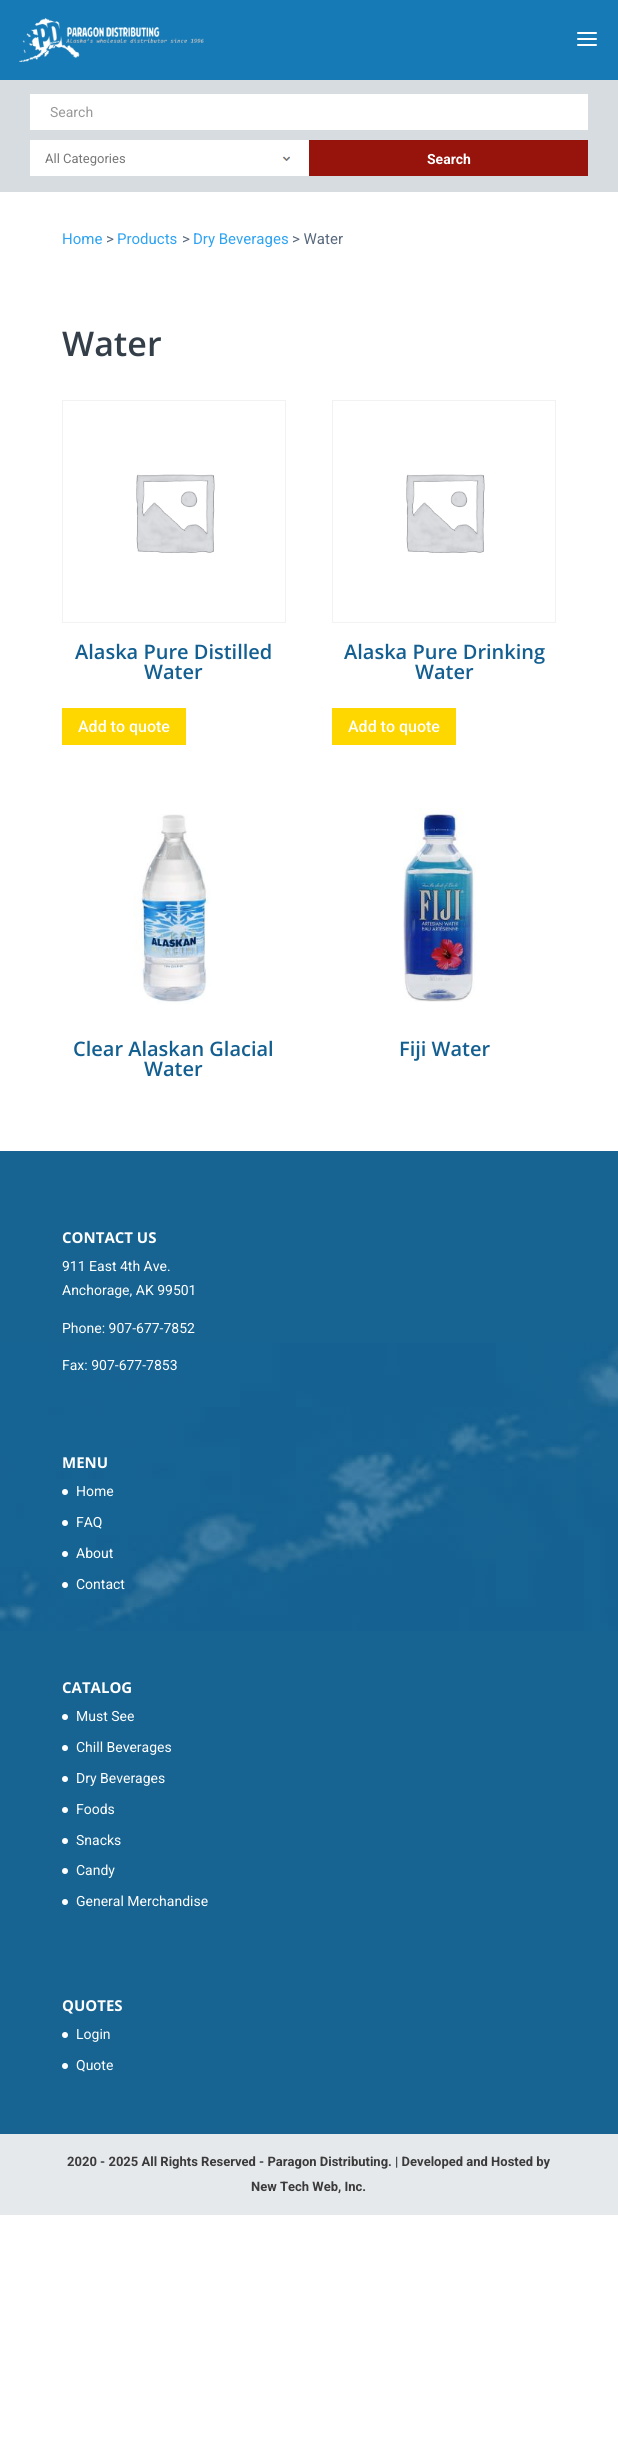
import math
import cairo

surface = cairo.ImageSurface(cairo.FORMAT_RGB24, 618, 2454)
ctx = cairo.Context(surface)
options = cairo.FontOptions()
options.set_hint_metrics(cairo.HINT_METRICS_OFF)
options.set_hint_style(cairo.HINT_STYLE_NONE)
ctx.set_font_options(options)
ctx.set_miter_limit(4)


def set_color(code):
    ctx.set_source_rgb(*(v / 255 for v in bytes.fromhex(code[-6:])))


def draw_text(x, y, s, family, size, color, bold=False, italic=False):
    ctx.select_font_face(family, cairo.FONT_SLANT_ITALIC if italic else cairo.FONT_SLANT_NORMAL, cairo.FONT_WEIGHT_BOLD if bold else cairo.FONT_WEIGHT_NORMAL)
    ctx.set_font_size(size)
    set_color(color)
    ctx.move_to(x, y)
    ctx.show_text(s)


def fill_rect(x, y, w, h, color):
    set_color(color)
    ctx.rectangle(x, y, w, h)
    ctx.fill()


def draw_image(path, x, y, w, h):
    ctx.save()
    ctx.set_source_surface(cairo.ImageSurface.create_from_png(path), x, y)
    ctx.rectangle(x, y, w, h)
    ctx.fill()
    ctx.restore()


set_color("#ffffff")
ctx.paint()
fill_rect(0, 0, 618, 80, "#167ab6")
draw_image("assets/img1.png", 19, 18, 185, 44)
draw_image("assets/img2.png", 577, 32, 20, 14)
fill_rect(0, 80, 618, 112, "#d7dce0")
fill_rect(30, 94, 558, 36, "#ffffff")
draw_text(50, 117, "Search", "Roboto", 14, "#999999")
fill_rect(30, 140, 279, 36, "#ffffff")
draw_image("assets/img3.png", 283, 156, 7, 5)
draw_text(45, 163, "All Categories", "Roboto", 13, "#777777")
fill_rect(309, 140, 279, 36, "#96140c")
draw_text(427, 164, "Search", "Roboto", 14, "#ffffff", bold=True)
draw_text(62, 244, "Home", "Roboto", 15, "#2ea3f2")
draw_text(106, 244, ">", "Roboto", 15, "#58697d")
draw_text(117, 244, "Products", "Roboto", 15, "#2ea3f2")
draw_text(182, 244, ">", "Roboto", 15, "#58697d")
draw_text(193, 244, "Dry Beverages", "Roboto", 15, "#2ea3f2")
draw_text(292, 244, "> Water", "Roboto", 15, "#58697d")
draw_text(62, 356, "Water", "Open Sans SemiBold", 34, "#333e48")
ctx.rectangle(62.5, 400.5, 223, 222)
set_color("#f2f2f2")
ctx.set_line_width(1)
ctx.stroke()
draw_image("assets/img4.png", 136, 474, 79, 79)
draw_text(75, 659, "Alaska Pure Distilled", "Open Sans SemiBold", 20, "#135f91")
draw_text(144, 679, "Water", "Open Sans SemiBold", 20, "#135f91")
fill_rect(62, 708, 124, 37, "#fed700")
draw_text(78, 732, "Add to quote", "Roboto Medium", 16, "#ffffff")
ctx.rectangle(332.5, 400.5, 223, 222)
set_color("#f2f2f2")
ctx.stroke()
draw_image("assets/img5.png", 406, 474, 79, 79)
draw_text(344, 659, "Alaska Pure Drinking", "Open Sans SemiBold", 20, "#135f91")
draw_text(415, 679, "Water", "Open Sans SemiBold", 20, "#135f91")
fill_rect(332, 708, 124, 37, "#fed700")
draw_text(348, 732, "Add to quote", "Roboto Medium", 16, "#ffffff")
draw_image("assets/img6.png", 133, 814, 78, 190)
draw_text(73, 1056, "Clear Alaskan Glacial", "Open Sans SemiBold", 20, "#135f91")
draw_text(144, 1076, "Water", "Open Sans SemiBold", 20, "#135f91")
draw_image("assets/img7.png", 403, 808, 73, 194)
draw_text(399, 1056, "Fiji Water", "Open Sans SemiBold", 20, "#135f91")
fill_rect(0, 1151, 618, 983, "#176492")
draw_image("assets/img8.png", 0, 1343, 618, 288)
draw_text(62, 1243, "CONTACT US", "Open Sans", 15, "#ffffff", bold=True)
draw_text(62, 1271, "911 East 4th Ave.", "Roboto", 14, "#ffffff")
draw_text(62, 1295, "Anchorage, AK 99501", "Roboto", 14, "#ffffff")
draw_text(62, 1333, "Phone: 907-677-7852", "Roboto", 14, "#ffffff")
draw_text(62, 1370, "Fax: 907-677-7853", "Roboto", 14, "#ffffff")
draw_text(62, 1468, "MENU", "Open Sans", 15, "#ffffff", bold=True)
ctx.new_path()
ctx.arc(65, 1492, 3, 0, 2 * math.pi)
ctx.fill()
draw_text(76, 1496, "Home", "Roboto", 14, "#ffffff")
ctx.new_path()
ctx.arc(65, 1523, 3, 0, 2 * math.pi)
ctx.fill()
draw_text(76, 1527, "FAQ", "Roboto", 14, "#ffffff")
ctx.new_path()
ctx.arc(65, 1554, 3, 0, 2 * math.pi)
ctx.fill()
draw_text(76, 1558, "About", "Roboto", 14, "#ffffff")
ctx.new_path()
ctx.arc(65, 1585, 3, 0, 2 * math.pi)
ctx.fill()
draw_text(76, 1589, "Contact", "Roboto", 14, "#ffffff")
draw_text(62, 1693, "CATALOG", "Open Sans", 15, "#ffffff", bold=True)
ctx.new_path()
ctx.arc(65, 1717, 3, 0, 2 * math.pi)
ctx.fill()
draw_text(76, 1721, "Must See", "Roboto", 14, "#ffffff")
ctx.new_path()
ctx.arc(65, 1748, 3, 0, 2 * math.pi)
ctx.fill()
draw_text(76, 1752, "Chill Beverages", "Roboto", 14, "#ffffff")
ctx.new_path()
ctx.arc(65, 1779, 3, 0, 2 * math.pi)
ctx.fill()
draw_text(76, 1783, "Dry Beverages", "Roboto", 14, "#ffffff")
ctx.new_path()
ctx.arc(65, 1810, 3, 0, 2 * math.pi)
ctx.fill()
draw_text(76, 1814, "Foods", "Roboto", 14, "#ffffff")
ctx.new_path()
ctx.arc(65, 1841, 3, 0, 2 * math.pi)
ctx.fill()
draw_text(76, 1845, "Snacks", "Roboto", 14, "#ffffff")
ctx.new_path()
ctx.arc(65, 1871, 3, 0, 2 * math.pi)
ctx.fill()
draw_text(76, 1875, "Candy", "Roboto", 14, "#ffffff")
ctx.new_path()
ctx.arc(65, 1902, 3, 0, 2 * math.pi)
ctx.fill()
draw_text(76, 1906, "General Merchandise", "Roboto", 14, "#ffffff")
draw_text(62, 2011, "QUOTES", "Open Sans", 15, "#ffffff", bold=True)
ctx.new_path()
ctx.arc(65, 2035, 3, 0, 2 * math.pi)
ctx.fill()
draw_text(76, 2039, "Login", "Roboto", 14, "#ffffff")
ctx.new_path()
ctx.arc(65, 2066, 3, 0, 2 * math.pi)
ctx.fill()
draw_text(76, 2070, "Quote", "Roboto", 14, "#ffffff")
fill_rect(0, 2134, 618, 81, "#e6e9ec")
draw_text(67, 2166, "2020 - 2025 All Rights Reserved - Paragon Distributing. | Developed and Hosted by", "Roboto", 13, "#3b3b3b", bold=True)
draw_text(251, 2191, "New Tech Web, Inc.", "Roboto", 13, "#3b3b3b", bold=True)
surface.write_to_png("output.png")
